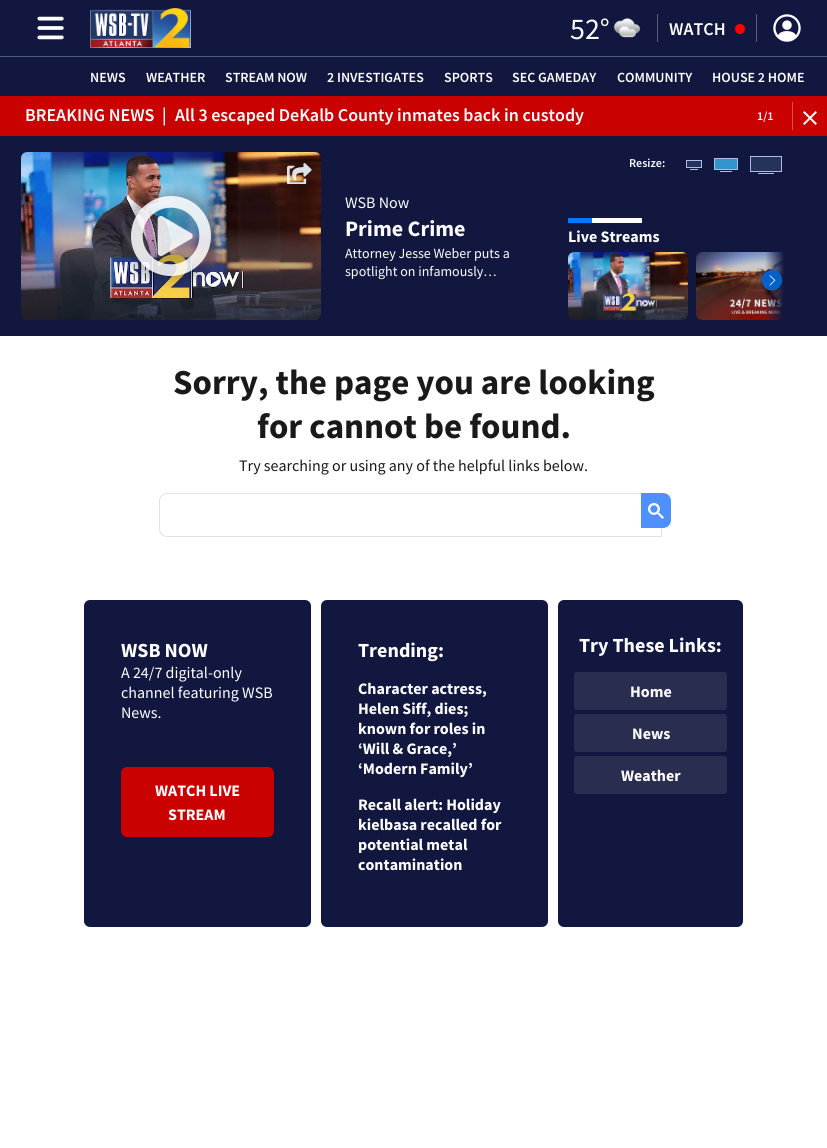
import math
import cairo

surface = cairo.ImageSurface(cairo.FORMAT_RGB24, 827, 1148)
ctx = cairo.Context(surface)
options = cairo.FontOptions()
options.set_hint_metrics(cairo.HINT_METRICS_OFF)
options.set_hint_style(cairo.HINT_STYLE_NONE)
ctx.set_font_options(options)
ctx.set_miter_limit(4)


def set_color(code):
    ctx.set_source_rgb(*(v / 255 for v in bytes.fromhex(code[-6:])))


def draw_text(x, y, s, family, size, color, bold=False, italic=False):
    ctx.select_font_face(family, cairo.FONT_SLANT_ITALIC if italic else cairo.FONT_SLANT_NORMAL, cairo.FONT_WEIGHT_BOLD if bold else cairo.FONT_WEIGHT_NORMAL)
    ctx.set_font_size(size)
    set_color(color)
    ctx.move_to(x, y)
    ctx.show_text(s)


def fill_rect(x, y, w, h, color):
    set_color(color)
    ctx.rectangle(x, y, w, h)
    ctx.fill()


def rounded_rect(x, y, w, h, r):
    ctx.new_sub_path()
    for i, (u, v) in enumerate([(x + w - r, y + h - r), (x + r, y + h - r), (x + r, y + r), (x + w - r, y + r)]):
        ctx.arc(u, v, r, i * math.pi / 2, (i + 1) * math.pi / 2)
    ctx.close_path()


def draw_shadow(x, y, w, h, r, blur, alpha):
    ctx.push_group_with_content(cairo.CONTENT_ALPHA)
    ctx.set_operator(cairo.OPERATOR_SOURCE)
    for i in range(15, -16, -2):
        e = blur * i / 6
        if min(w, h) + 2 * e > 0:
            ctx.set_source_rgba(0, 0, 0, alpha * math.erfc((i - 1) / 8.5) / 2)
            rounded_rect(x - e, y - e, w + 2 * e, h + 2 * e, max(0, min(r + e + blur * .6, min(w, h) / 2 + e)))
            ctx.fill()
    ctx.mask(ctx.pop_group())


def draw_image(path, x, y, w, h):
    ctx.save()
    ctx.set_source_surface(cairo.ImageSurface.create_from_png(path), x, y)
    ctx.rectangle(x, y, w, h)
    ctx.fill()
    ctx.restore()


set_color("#ffffff")
ctx.paint()
fill_rect(0, 0, 827, 56, "#11173e")
draw_image("assets/img1.png", 37, 16, 27, 24)
draw_image("assets/img2.png", 90, 8, 101, 40)
draw_text(570, 39, "52°", "Source Sans Pro", 30, "#ffffff")
draw_image("assets/img3.png", 613, 18, 28, 20)
fill_rect(657, 14, 1, 28, "#585d78")
draw_text(669, 35, "WATCH", "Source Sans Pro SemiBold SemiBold", 18, "#ffffff")
set_color("#ff0000")
ctx.new_path()
ctx.arc(740, 29, 5, 0, 2 * math.pi)
ctx.fill()
fill_rect(756, 14, 1, 28, "#585d78")
draw_image("assets/img4.png", 773, 14, 28, 28)
fill_rect(0, 57, 827, 39, "#11173e")
fill_rect(0, 56, 827, 1, "#4b5d78")
draw_text(90, 82, "NEWS", "Source Sans Pro SemiBold SemiBold", 14, "#ffffff")
draw_text(146, 82, "WEATHER", "Source Sans Pro SemiBold SemiBold", 14, "#ffffff")
draw_text(225, 82, "STREAM NOW", "Source Sans Pro SemiBold SemiBold", 14, "#ffffff")
draw_text(327, 82, "2 INVESTIGATES", "Source Sans Pro SemiBold SemiBold", 14, "#ffffff")
draw_text(444, 82, "SPORTS", "Source Sans Pro SemiBold SemiBold", 14, "#ffffff")
draw_text(512, 82, "SEC GAMEDAY", "Source Sans Pro SemiBold SemiBold", 14, "#ffffff")
draw_text(617, 82, "COMMUNITY", "Source Sans Pro SemiBold SemiBold", 14, "#ffffff")
draw_text(712, 82, "HOUSE 2 HOME", "Source Sans Pro SemiBold SemiBold", 14, "#ffffff")
fill_rect(0, 96, 827, 40, "#ca0101")
draw_text(25, 121, "BREAKING NEWS", "Source Sans Pro SemiBold SemiBold", 18, "#ffffff")
draw_text(162, 121, "|", "Source Sans Pro SemiBold SemiBold", 18, "#ffffff")
draw_text(175, 121, "All 3 escaped DeKalb County inmates back in custody", "Source Sans Pro SemiBold SemiBold", 18, "#ffffff")
draw_text(757, 120, "1/1", "Source Sans Pro SemiBold SemiBold", 12, "#ffffff")
fill_rect(792, 102, 1, 28, "#da4d4d")
draw_image("assets/img5.png", 803, 111, 14, 14)
fill_rect(0, 136, 827, 200, "#11173e")
draw_image("assets/img7.png", 21, 152, 300, 168)
ctx.save()
ctx.rectangle(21, 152, 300, 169)
ctx.clip()
ctx.set_fill_rule(cairo.FILL_RULE_EVEN_ODD)
ctx.new_path()
ctx.move_to(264, 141)
ctx.line_to(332, 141)
ctx.line_to(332, 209)
ctx.line_to(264, 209)
ctx.close_path()
ctx.move_to(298, 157)
ctx.curve_to(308, 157, 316, 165, 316, 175)
ctx.curve_to(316, 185, 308, 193, 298, 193)
ctx.curve_to(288, 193, 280, 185, 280, 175)
ctx.curve_to(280, 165, 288, 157, 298, 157)
ctx.close_path()
ctx.clip()
set_color("#000000")
draw_shadow(276, 153, 44, 44, 22, 3.5, 0.1)
ctx.restore()
ctx.set_source_rgba(0, 0, 0, 0.1)
ctx.arc(298, 175, 18, 0, 2 * math.pi)
ctx.fill()
draw_image("assets/img6.png", 287, 163, 25, 21)
ctx.save()
ctx.set_fill_rule(cairo.FILL_RULE_EVEN_ODD)
ctx.new_path()
ctx.move_to(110, 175)
ctx.line_to(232, 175)
ctx.line_to(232, 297)
ctx.line_to(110, 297)
ctx.close_path()
ctx.move_to(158, 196)
ctx.line_to(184, 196)
ctx.curve_to(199, 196, 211, 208, 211, 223)
ctx.line_to(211, 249)
ctx.curve_to(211, 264, 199, 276, 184, 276)
ctx.line_to(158, 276)
ctx.curve_to(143, 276, 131, 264, 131, 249)
ctx.line_to(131, 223)
ctx.curve_to(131, 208, 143, 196, 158, 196)
ctx.close_path()
ctx.clip()
set_color("#000000")
draw_shadow(126, 191, 90, 90, 32, 5, 0.21)
ctx.restore()
ctx.set_source_rgba(0, 0, 0, 0.21)
rounded_rect(131, 196, 80, 80, 27)
ctx.fill()
draw_image("assets/img8.png", 131, 196, 80, 80)
draw_text(629, 167, "Resize:", "Source Sans Pro SemiBold SemiBold", 12, "#ffffff")
draw_image("assets/img9.png", 686, 160, 16, 10)
draw_image("assets/img10.png", 714, 158, 24, 14)
draw_image("assets/img11.png", 750, 156, 32, 18)
draw_text(345, 208, "WSB Now", "Source Sans Pro", 16, "#ffffff")
draw_text(345, 236, "Prime Crime", "Source Sans Pro", 22, "#ffffff", bold=True)
draw_text(345, 258, "Attorney Jesse Weber puts a", "Source Sans Pro", 14, "#ffffff")
draw_text(345, 276, "spotlight on infamously…", "Source Sans Pro", 14, "#ffffff")
fill_rect(592, 218, 50, 5, "#ffffff")
fill_rect(568, 218, 24, 5, "#0079ff")
draw_text(568, 242, "Live Streams", "Source Sans Pro", 16, "#ffffff", bold=True)
draw_image("assets/img12.png", 568, 252, 120, 68)
draw_image("assets/img13.png", 696, 252, 88, 68)
gradient = cairo.LinearGradient(765, 280, 789, 280)
gradient.add_color_stop_rgba(0, 0.067, 0.09, 0.243, 0)
gradient.add_color_stop_rgba(0.8, 0.067, 0.09, 0.243, 1)
ctx.set_source(gradient)
ctx.rectangle(765, 252, 19, 68)
ctx.fill()
draw_image("assets/img14.png", 760, 270, 24, 24)
draw_text(173, 394, "Sorry, the page you are looking", "Source Sans Pro", 35, "#191919", bold=True)
draw_text(257, 438, "for cannot be found.", "Source Sans Pro", 35, "#191919", bold=True)
draw_text(239, 471, "Try searching or using any of the helpful links below.", "Source Sans Pro", 16, "#191919")
ctx.new_path()
ctx.move_to(167, 493.5)
ctx.line_to(661.5, 493.5)
ctx.line_to(661.5, 536.5)
ctx.line_to(167, 536.5)
ctx.curve_to(163, 536.5, 159.5, 533, 159.5, 529)
ctx.line_to(159.5, 501)
ctx.curve_to(159.5, 497, 163, 493.5, 167, 493.5)
ctx.close_path()
set_color("#dfe1e5")
ctx.set_line_width(1)
ctx.stroke()
set_color("#4d90fe")
ctx.new_path()
ctx.move_to(641, 493)
ctx.line_to(663, 493)
ctx.curve_to(667.5, 493, 671, 496.5, 671, 501)
ctx.line_to(671, 520)
ctx.curve_to(671, 524.5, 667.5, 528, 663, 528)
ctx.line_to(641, 528)
ctx.close_path()
ctx.fill()
draw_image("assets/img15.png", 648, 503, 16, 16)
set_color("#11173e")
rounded_rect(84, 600, 227, 327, 6)
ctx.fill()
draw_text(121, 657, "WSB NOW", "Source Sans Pro", 20, "#ffffff", bold=True)
draw_text(121, 678, "A 24/7 digital-only", "Source Sans Pro", 16, "#ffffff")
draw_text(121, 698, "channel featuring WSB", "Source Sans Pro", 16, "#ffffff")
draw_text(121, 718, "News.", "Source Sans Pro", 16, "#ffffff")
set_color("#ca0101")
rounded_rect(121, 767, 153, 70, 6)
ctx.fill()
draw_text(155, 796, "WATCH LIVE", "Source Sans Pro", 16, "#ffffff", bold=True)
draw_text(168, 820, "STREAM", "Source Sans Pro", 16, "#ffffff", bold=True)
set_color("#11173e")
rounded_rect(321, 600, 227, 327, 6)
ctx.fill()
draw_text(358, 657, "Trending:", "Source Sans Pro", 20, "#ffffff", bold=True)
draw_text(358, 694, "Character actress,", "Source Sans Pro", 16, "#ffffff", bold=True)
draw_text(358, 714, "Helen Siff, dies;", "Source Sans Pro", 16, "#ffffff", bold=True)
draw_text(358, 734, "known for roles in", "Source Sans Pro", 16, "#ffffff", bold=True)
draw_text(358, 754, "‘Will & Grace,’", "Source Sans Pro", 16, "#ffffff", bold=True)
draw_text(358, 774, "‘Modern Family’", "Source Sans Pro", 16, "#ffffff", bold=True)
draw_text(358, 810, "Recall alert: Holiday", "Source Sans Pro", 16, "#ffffff", bold=True)
draw_text(358, 830, "kielbasa recalled for", "Source Sans Pro", 16, "#ffffff", bold=True)
draw_text(358, 850, "potential metal", "Source Sans Pro", 16, "#ffffff", bold=True)
draw_text(358, 870, "contamination", "Source Sans Pro", 16, "#ffffff", bold=True)
set_color("#11173e")
rounded_rect(558, 600, 185, 327, 6)
ctx.fill()
draw_text(579, 652, "Try These Links:", "Source Sans Pro", 20, "#ffffff", bold=True)
set_color("#292e51")
rounded_rect(574, 672, 153, 38, 3)
ctx.fill()
draw_text(630, 697, "Home", "Source Sans Pro", 16, "#ffffff", bold=True)
set_color("#292e51")
rounded_rect(574, 714, 153, 38, 3)
ctx.fill()
draw_text(632, 739, "News", "Source Sans Pro", 16, "#ffffff", bold=True)
set_color("#292e51")
rounded_rect(574, 756, 153, 38, 3)
ctx.fill()
draw_text(621, 781, "Weather", "Source Sans Pro", 16, "#ffffff", bold=True)
surface.write_to_png("output.png")
